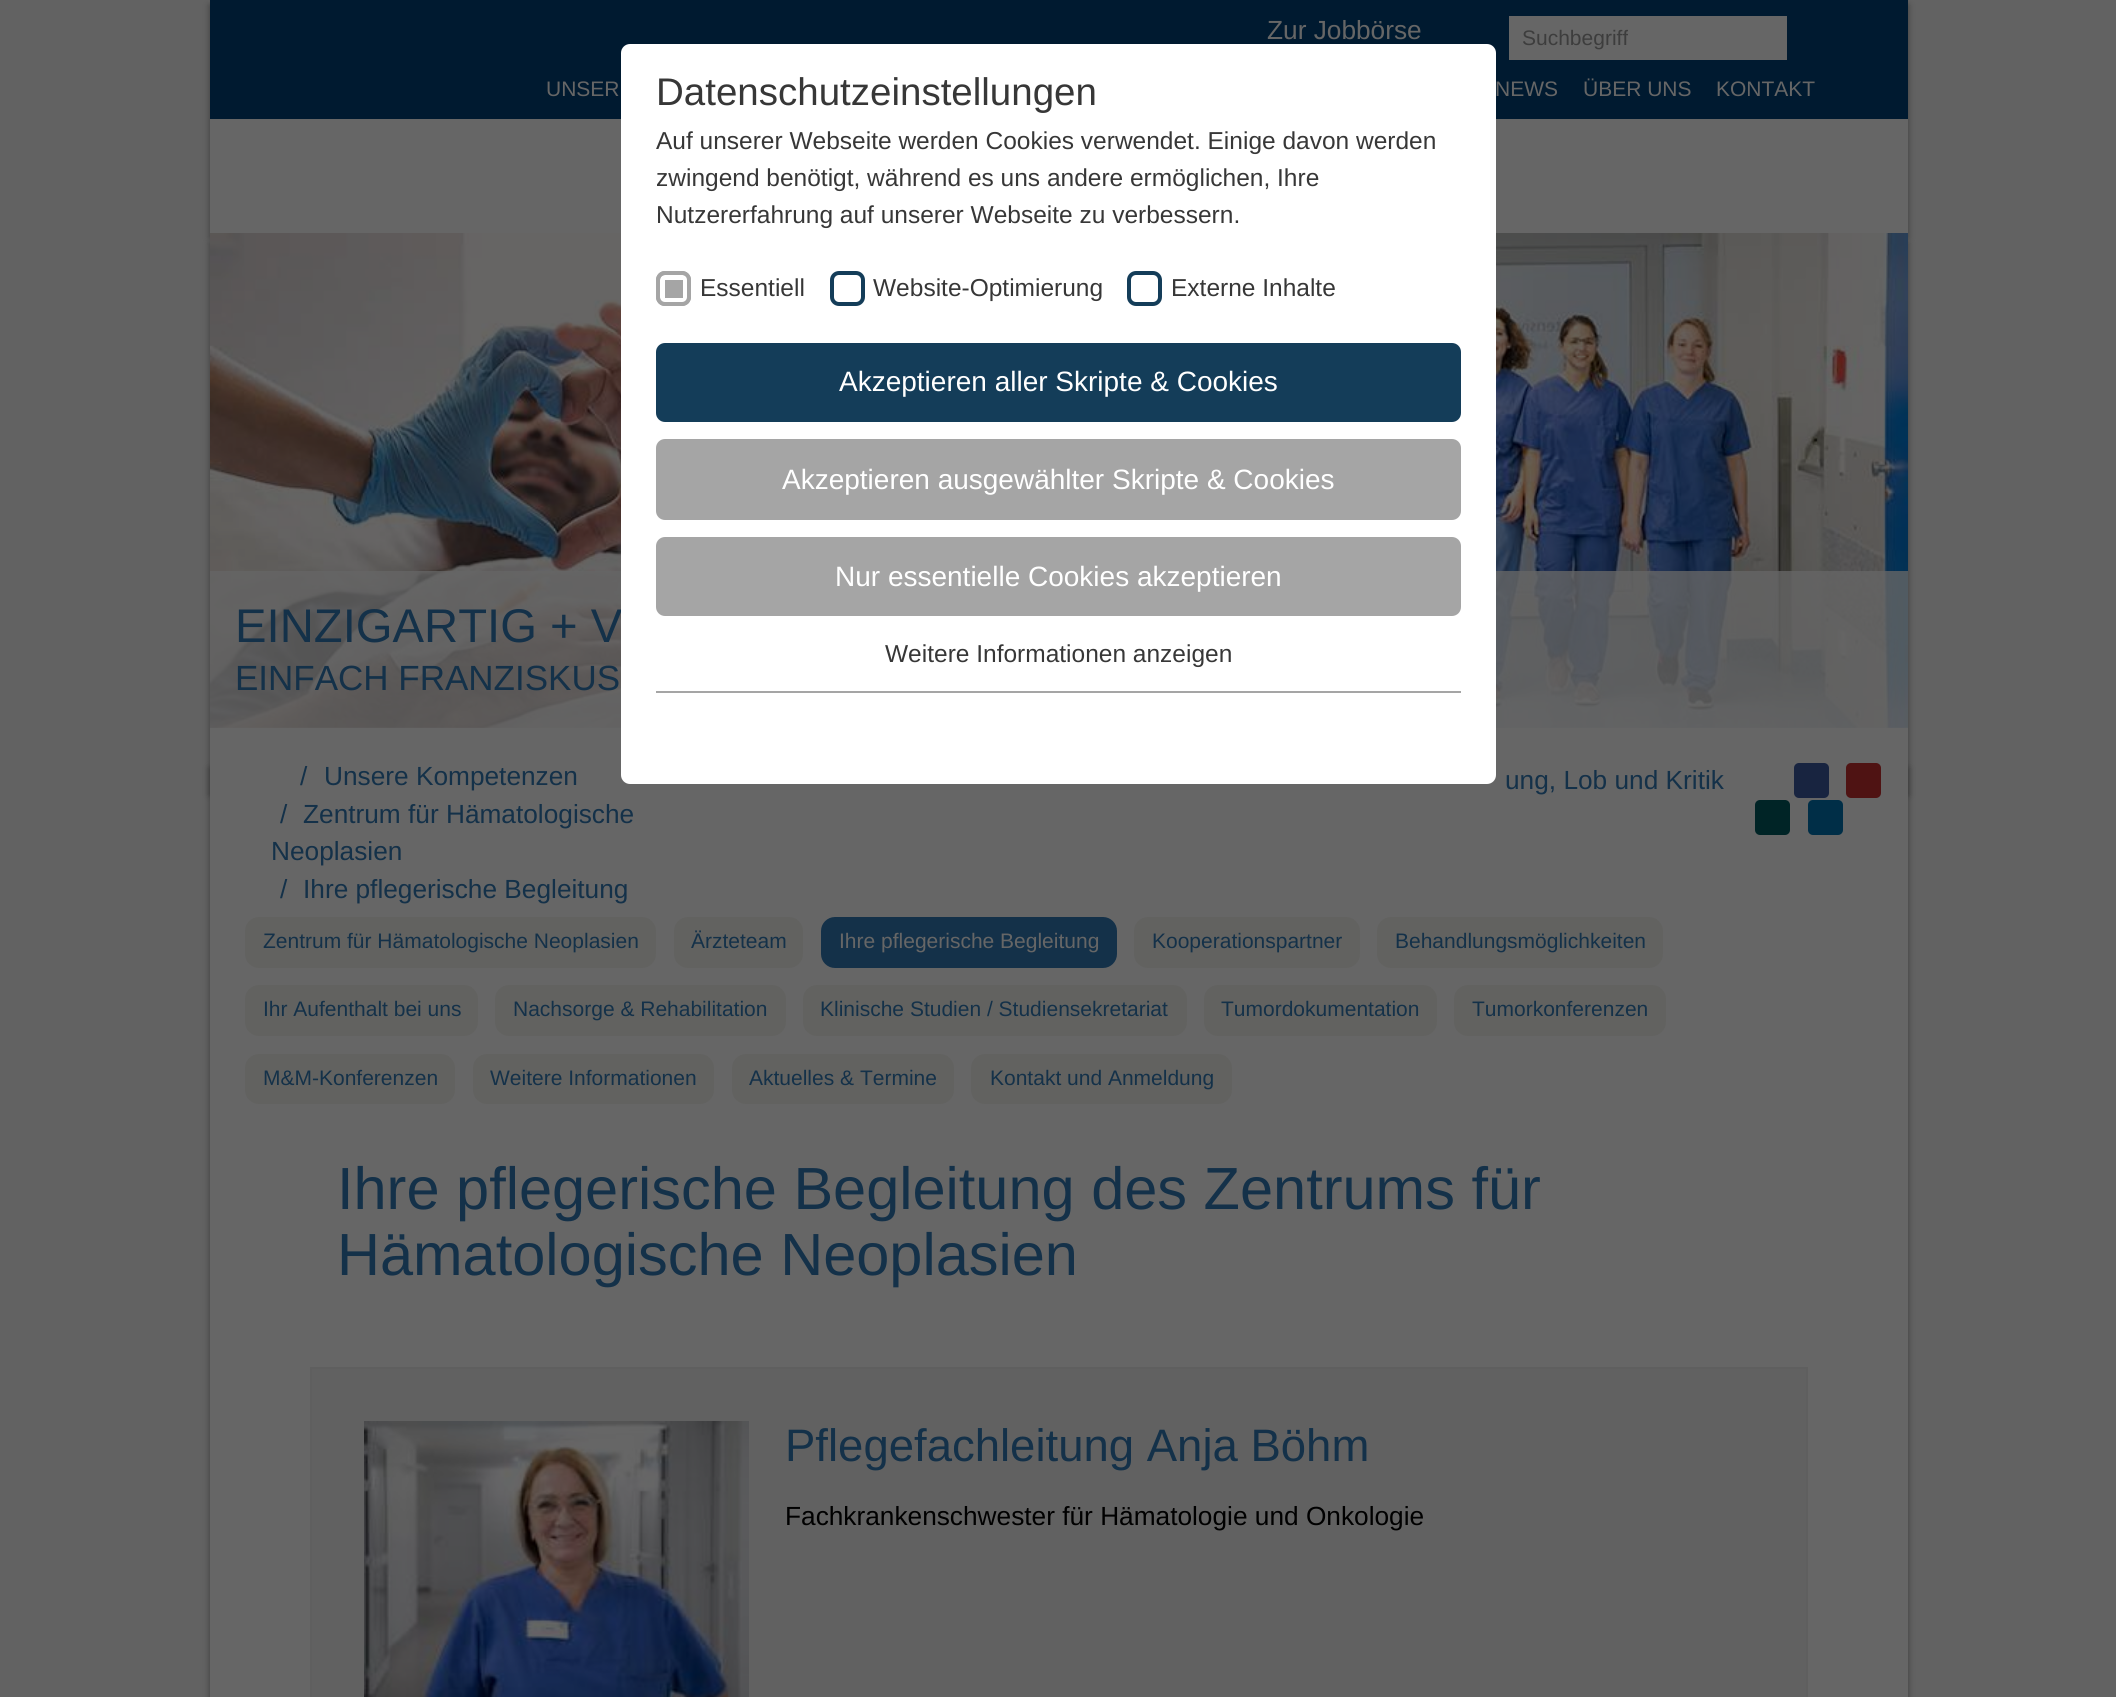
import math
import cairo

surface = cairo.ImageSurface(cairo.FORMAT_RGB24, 2116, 1697)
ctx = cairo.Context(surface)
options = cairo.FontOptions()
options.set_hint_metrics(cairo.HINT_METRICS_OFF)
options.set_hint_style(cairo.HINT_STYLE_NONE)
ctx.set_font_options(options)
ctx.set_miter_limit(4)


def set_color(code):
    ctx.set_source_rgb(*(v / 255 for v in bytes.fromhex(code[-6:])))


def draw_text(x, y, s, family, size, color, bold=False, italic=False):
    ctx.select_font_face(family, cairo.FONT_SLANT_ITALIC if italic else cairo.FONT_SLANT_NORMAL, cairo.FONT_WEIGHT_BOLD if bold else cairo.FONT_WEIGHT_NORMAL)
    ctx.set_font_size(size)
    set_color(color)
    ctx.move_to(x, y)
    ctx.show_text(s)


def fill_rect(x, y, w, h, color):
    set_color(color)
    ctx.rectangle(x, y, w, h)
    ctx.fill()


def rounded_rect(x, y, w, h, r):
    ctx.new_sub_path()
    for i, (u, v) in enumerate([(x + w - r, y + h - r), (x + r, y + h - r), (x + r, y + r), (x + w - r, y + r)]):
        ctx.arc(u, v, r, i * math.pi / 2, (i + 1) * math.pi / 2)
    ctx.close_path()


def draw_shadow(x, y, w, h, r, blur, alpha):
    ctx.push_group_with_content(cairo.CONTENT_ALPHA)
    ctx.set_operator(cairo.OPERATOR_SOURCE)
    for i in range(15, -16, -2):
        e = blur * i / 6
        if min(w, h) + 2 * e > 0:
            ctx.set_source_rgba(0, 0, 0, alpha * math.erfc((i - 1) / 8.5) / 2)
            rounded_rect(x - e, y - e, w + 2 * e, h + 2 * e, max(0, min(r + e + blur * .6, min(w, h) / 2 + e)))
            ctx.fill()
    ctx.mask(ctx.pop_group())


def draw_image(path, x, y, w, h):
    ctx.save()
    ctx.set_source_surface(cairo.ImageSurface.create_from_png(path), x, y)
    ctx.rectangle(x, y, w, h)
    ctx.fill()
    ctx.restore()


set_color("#626262")
ctx.paint()
set_color("#222222")
draw_shadow(210, 5, 1698, 233, 0, 3.5, 0.6)
fill_rect(210, 0, 1698, 119, "#001a30")
draw_text(1267, 39, "Zur Jobbörse", "Liberation Sans", 26.25, "#666666")
fill_rect(1509, 16, 278, 44, "#666666")
draw_text(1522, 45, "Suchbegriff", "Liberation Sans", 21, "#3d3d3d")
draw_text(546, 96, "UNSER", "Liberation Sans", 21, "#666666")
draw_text(1495, 96, "NEWS", "Liberation Sans", 21, "#666666")
draw_text(1583, 96, "ÜBER UNS", "Liberation Sans", 21, "#666666")
draw_text(1716, 96, "KONTAKT", "Liberation Sans", 21, "#666666")
fill_rect(210, 119, 1698, 114, "#666666")
set_color("#222222")
draw_shadow(210, 243, 1698, 552, 0, 3.5, 0.6)
fill_rect(210, 727, 1698, 31, "#666666")
draw_image("assets/img1.png", 210, 233, 1698, 495)
ctx.set_source_rgba(0.4, 0.4, 0.4, 0.8)
ctx.rectangle(210, 571, 1698, 157)
ctx.fill()
draw_text(235, 642, "EINZIGARTIG + V", "Liberation Sans", 47.25, "#143149")
set_color("#222222")
draw_shadow(210, 768, 1698, 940, 0, 3.5, 0.6)
fill_rect(210, 758, 1698, 939, "#666666")
set_color("#ffffff")
rounded_rect(621, 44, 875, 740, 9)
ctx.fill()
draw_text(656, 105, "Datenschutzeinstellungen", "Liberation Sans", 38.5, "#373737")
draw_text(656, 149, "Auf unserer Webseite werden Cookies verwendet. Einige davon werden", "Liberation Sans", 24.5, "#373737")
draw_text(656, 186, "zwingend benötigt, während es uns andere ermöglichen, Ihre", "Liberation Sans", 24.5, "#373737")
draw_text(656, 223, "Nutzererfahrung auf unserer Webseite zu verbessern.", "Liberation Sans", 24.5, "#373737")
set_color("#a5a5a5")
rounded_rect(656, 271, 35, 35, 9)
ctx.fill()
rounded_rect(662.5, 277.5, 23, 23, 2.5)
set_color("#ffffff")
ctx.set_line_width(5)
ctx.stroke()
rounded_rect(658, 273, 31, 31, 7)
set_color("#a5a5a5")
ctx.set_line_width(4)
ctx.stroke()
draw_text(700, 296, "Essentiell", "Liberation Sans", 24.5, "#373737")
rounded_rect(832, 273, 31, 31, 7)
set_color("#143d59")
ctx.stroke()
draw_text(873, 296, "Website-Optimierung", "Liberation Sans", 24.5, "#373737")
rounded_rect(1129, 273, 31, 31, 7)
set_color("#143d59")
ctx.stroke()
draw_text(1171, 296, "Externe Inhalte", "Liberation Sans", 24.5, "#373737")
set_color("#143d59")
rounded_rect(656, 343, 805, 79, 9)
ctx.fill()
draw_text(839, 391, "Akzeptieren aller Skripte & Cookies", "Liberation Sans", 28, "#ffffff")
set_color("#a5a5a5")
rounded_rect(656, 439, 805, 81, 9)
ctx.fill()
draw_text(782, 489, "Akzeptieren ausgewählter Skripte & Cookies", "Liberation Sans", 28, "#ffffff")
set_color("#a5a5a5")
rounded_rect(656, 537, 805, 79, 9)
ctx.fill()
draw_text(835, 586, "Nur essentielle Cookies akzeptieren", "Liberation Sans", 28, "#ffffff")
draw_text(885, 662, "Weitere Informationen anzeigen", "Liberation Sans", 24.5, "#373737")
fill_rect(656, 691, 805, 2, "#a5a5a5")
draw_text(235, 690, "EINFACH FRANZISKUS", "Liberation Sans", 35, "#143149")
draw_text(300, 785, "/", "Liberation Sans", 26.25, "#143149")
draw_text(324, 785, "Unsere Kompetenzen", "Liberation Sans", 26.25, "#143149")
draw_text(280, 823, "/", "Liberation Sans", 26.25, "#143149")
draw_text(303, 823, "Zentrum für Hämatologische", "Liberation Sans", 26.25, "#143149")
draw_text(271, 860, "Neoplasien", "Liberation Sans", 26.25, "#143149")
draw_text(280, 898, "/", "Liberation Sans", 26.25, "#143149")
draw_text(303, 898, "Ihre pflegerische Begleitung", "Liberation Sans", 26.25, "#143149")
draw_text(1505, 789, "ung, Lob und Kritik", "Liberation Sans", 26.25, "#143149")
set_color("#182440")
rounded_rect(1794, 763, 35, 35, 5)
ctx.fill()
set_color("#4f1313")
rounded_rect(1846, 763, 35, 35, 5)
ctx.fill()
set_color("#002426")
rounded_rect(1755, 800, 35, 35, 5)
ctx.fill()
set_color("#002e47")
rounded_rect(1808, 800, 35, 35, 5)
ctx.fill()
set_color("#626260")
rounded_rect(245, 917, 411, 51, 14)
ctx.fill()
draw_text(263, 948, "Zentrum für Hämatologische Neoplasien", "Liberation Sans", 21, "#143149")
set_color("#626260")
rounded_rect(674, 917, 129, 51, 14)
ctx.fill()
draw_text(691, 948, "Ärzteteam", "Liberation Sans", 21, "#143149")
rounded_rect(821, 917, 296, 51, 14)
ctx.fill()
draw_text(839, 948, "Ihre pflegerische Begleitung", "Liberation Sans", 21, "#666666")
set_color("#626260")
rounded_rect(1134, 917, 226, 51, 14)
ctx.fill()
draw_text(1152, 948, "Kooperationspartner", "Liberation Sans", 21, "#143149")
set_color("#626260")
rounded_rect(1377, 917, 286, 51, 14)
ctx.fill()
draw_text(1395, 948, "Behandlungsmöglichkeiten", "Liberation Sans", 21, "#143149")
set_color("#626260")
rounded_rect(245, 985, 233, 51, 14)
ctx.fill()
draw_text(263, 1016, "Ihr Aufenthalt bei uns", "Liberation Sans", 21, "#143149")
set_color("#626260")
rounded_rect(495, 985, 291, 51, 14)
ctx.fill()
draw_text(513, 1016, "Nachsorge & Rehabilitation", "Liberation Sans", 21, "#143149")
set_color("#626260")
rounded_rect(803, 985, 384, 51, 14)
ctx.fill()
draw_text(820, 1016, "Klinische Studien / Studiensekretariat", "Liberation Sans", 21, "#143149")
set_color("#626260")
rounded_rect(1204, 985, 233, 51, 14)
ctx.fill()
draw_text(1221, 1016, "Tumordokumentation", "Liberation Sans", 21, "#143149")
set_color("#626260")
rounded_rect(1454, 985, 212, 51, 14)
ctx.fill()
draw_text(1472, 1016, "Tumorkonferenzen", "Liberation Sans", 21, "#143149")
set_color("#626260")
rounded_rect(245, 1054, 210, 50, 14)
ctx.fill()
draw_text(263, 1085, "M&M-Konferenzen", "Liberation Sans", 21, "#143149")
set_color("#626260")
rounded_rect(473, 1054, 241, 50, 14)
ctx.fill()
draw_text(490, 1085, "Weitere Informationen", "Liberation Sans", 21, "#143149")
set_color("#626260")
rounded_rect(732, 1054, 222, 50, 14)
ctx.fill()
draw_text(749, 1085, "Aktuelles & Termine", "Liberation Sans", 21, "#143149")
set_color("#626260")
rounded_rect(971, 1054, 261, 50, 14)
ctx.fill()
draw_text(990, 1085, "Kontakt und Anmeldung", "Liberation Sans", 21, "#143149")
draw_text(337, 1209, "Ihre pflegerische Begleitung des Zentrums für", "Liberation Sans", 59.5, "#143149")
draw_text(337, 1275, "Hämatologische Neoplasien", "Liberation Sans", 59.5, "#143149")
set_color("#616161")
ctx.rectangle(311, 1368, 1496, 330)
ctx.fill_preserve()
set_color("#5f5f5f")
ctx.set_line_width(2)
ctx.stroke()
draw_image("assets/img2.png", 364, 1421, 385, 276)
draw_text(785, 1461, "Pflegefachleitung Anja Böhm", "Liberation Sans", 45.5, "#143149")
draw_text(785, 1525, "Fachkrankenschwester für Hämatologie und Onkologie", "Liberation Sans", 26.25, "#000000")
surface.write_to_png("output.png")
